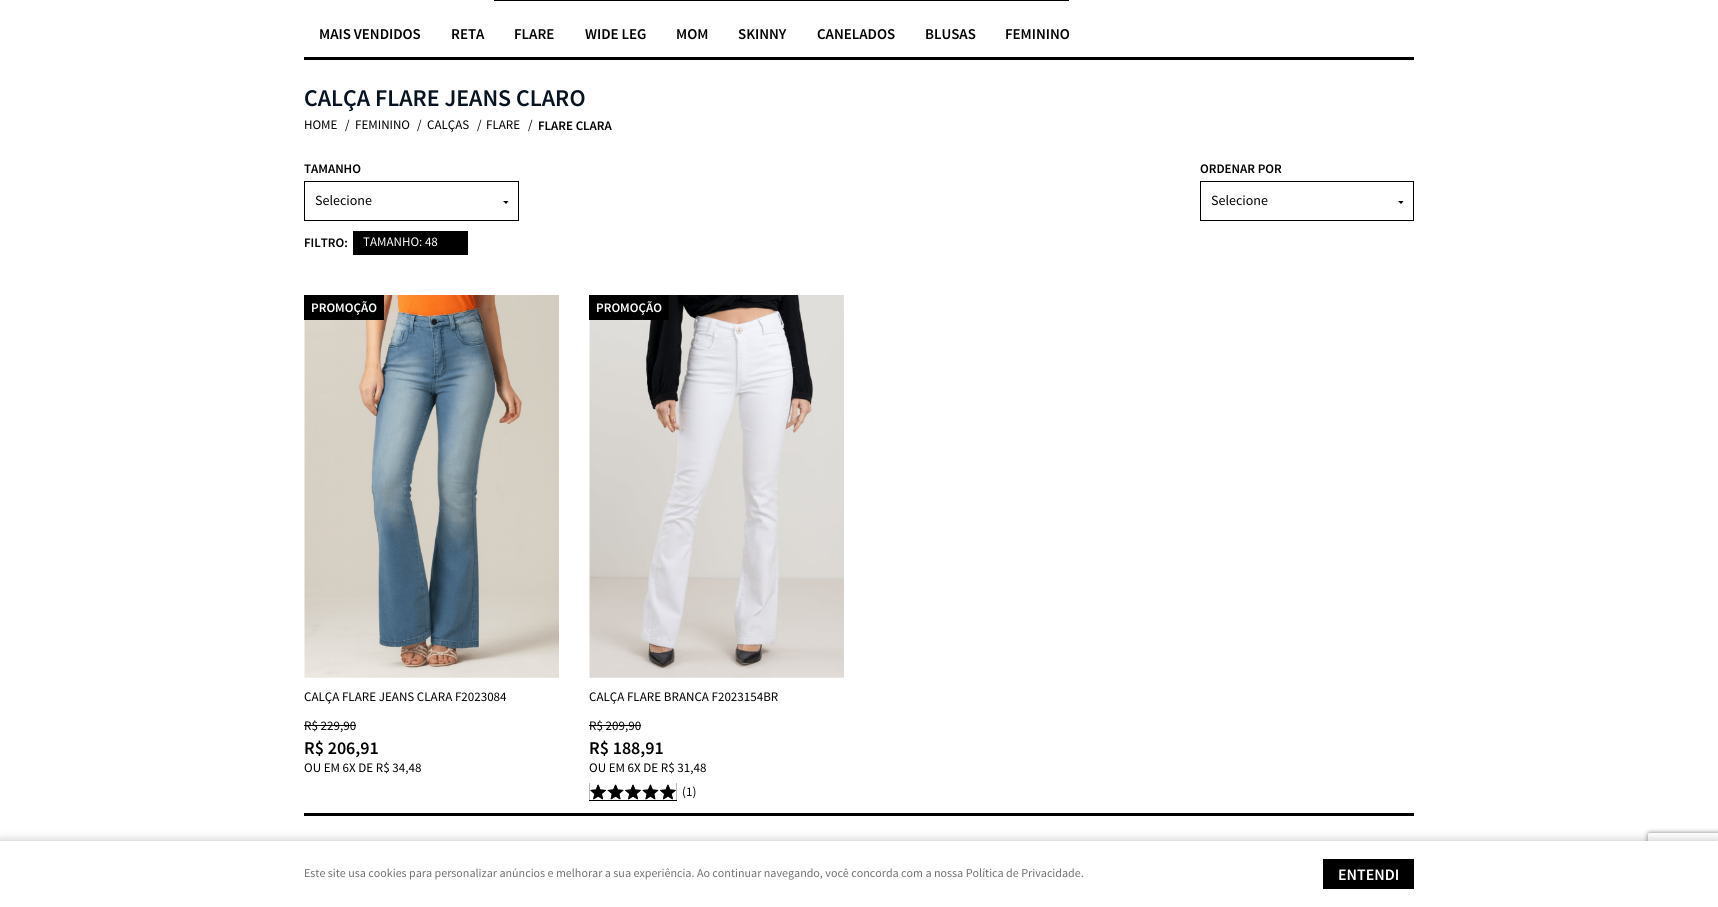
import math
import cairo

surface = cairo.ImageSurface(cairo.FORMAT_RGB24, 1718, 907)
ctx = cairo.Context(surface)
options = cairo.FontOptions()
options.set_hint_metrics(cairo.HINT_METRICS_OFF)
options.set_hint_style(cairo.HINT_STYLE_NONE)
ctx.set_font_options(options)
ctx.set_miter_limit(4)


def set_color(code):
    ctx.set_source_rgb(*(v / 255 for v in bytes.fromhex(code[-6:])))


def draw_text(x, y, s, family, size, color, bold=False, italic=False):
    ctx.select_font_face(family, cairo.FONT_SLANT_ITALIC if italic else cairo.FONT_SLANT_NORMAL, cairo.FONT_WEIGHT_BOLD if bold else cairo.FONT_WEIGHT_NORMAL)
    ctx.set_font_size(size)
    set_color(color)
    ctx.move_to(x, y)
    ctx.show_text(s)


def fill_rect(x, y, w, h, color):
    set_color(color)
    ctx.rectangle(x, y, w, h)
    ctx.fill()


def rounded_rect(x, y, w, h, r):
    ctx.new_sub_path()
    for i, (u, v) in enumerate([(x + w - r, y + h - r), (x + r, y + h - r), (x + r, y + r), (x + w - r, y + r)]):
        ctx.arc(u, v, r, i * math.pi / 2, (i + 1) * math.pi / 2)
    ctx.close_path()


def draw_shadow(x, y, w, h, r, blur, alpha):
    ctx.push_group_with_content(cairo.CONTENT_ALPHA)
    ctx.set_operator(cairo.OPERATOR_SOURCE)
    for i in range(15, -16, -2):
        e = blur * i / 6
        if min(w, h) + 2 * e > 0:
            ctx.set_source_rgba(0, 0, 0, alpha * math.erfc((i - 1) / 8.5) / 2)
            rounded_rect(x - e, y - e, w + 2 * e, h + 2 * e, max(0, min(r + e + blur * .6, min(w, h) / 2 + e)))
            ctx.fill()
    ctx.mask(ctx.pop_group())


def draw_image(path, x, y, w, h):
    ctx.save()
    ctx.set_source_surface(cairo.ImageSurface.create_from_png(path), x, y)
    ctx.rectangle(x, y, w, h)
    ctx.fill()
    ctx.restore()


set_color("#ffffff")
ctx.paint()
ctx.rectangle(494.5, -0.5, 574, 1)
set_color("#000000")
ctx.set_line_width(1)
ctx.stroke()
fill_rect(304, 57, 1110, 3, "#000000")
draw_text(319, 39, "MAIS VENDIDOS", "Source Sans Pro SemiBold", 15, "#000000")
draw_text(451, 39, "RETA", "Source Sans Pro SemiBold", 15, "#000000")
draw_text(514, 39, "FLARE", "Source Sans Pro SemiBold", 15, "#000000")
draw_text(585, 39, "WIDE LEG", "Source Sans Pro SemiBold", 15, "#000000")
draw_text(676, 39, "MOM", "Source Sans Pro SemiBold", 15, "#000000")
draw_text(738, 39, "SKINNY", "Source Sans Pro SemiBold", 15, "#000000")
draw_text(817, 39, "CANELADOS", "Source Sans Pro SemiBold", 15, "#000000")
draw_text(925, 39, "BLUSAS", "Source Sans Pro SemiBold", 15, "#000000")
draw_text(1005, 39, "FEMININO", "Source Sans Pro SemiBold", 15, "#000000")
draw_text(304, 106, "CALÇA FLARE JEANS CLARO", "Source Sans Pro SemiBold", 24, "#071321")
draw_text(304, 129, "HOME", "Source Sans Pro", 13, "#000000")
draw_text(345, 129, "/", "Source Sans Pro", 13, "#000000")
draw_text(355, 129, "FEMININO", "Source Sans Pro", 13, "#000000")
draw_text(417, 129, "/", "Source Sans Pro", 13, "#000000")
draw_text(427, 129, "CALÇAS", "Source Sans Pro", 13, "#000000")
draw_text(477, 129, "/", "Source Sans Pro", 13, "#000000")
draw_text(486, 129, "FLARE", "Source Sans Pro", 13, "#000000")
draw_text(528, 129, "/", "Source Sans Pro", 13, "#000000")
draw_text(538, 130, "FLARE CLARA", "Source Sans Pro SemiBold", 13, "#000000")
draw_text(304, 173, "TAMANHO", "Source Sans Pro SemiBold", 13, "#000000")
ctx.rectangle(304.5, 181.5, 214, 39)
ctx.stroke()
draw_text(315, 205, "Selecione", "Source Sans Pro", 14, "#000000")
ctx.new_path()
ctx.move_to(503, 201)
ctx.line_to(508.5, 201)
ctx.line_to(506, 204)
ctx.close_path()
ctx.fill()
draw_text(1200, 173, "ORDENAR POR", "Source Sans Pro SemiBold", 13, "#000000")
ctx.rectangle(1200.5, 181.5, 213, 39)
ctx.stroke()
draw_text(1211, 205, "Selecione", "Source Sans Pro", 14, "#000000")
ctx.new_path()
ctx.move_to(1398, 201)
ctx.line_to(1403.5, 201)
ctx.line_to(1401, 204)
ctx.close_path()
ctx.fill()
draw_text(304, 247, "FILTRO:", "Source Sans Pro SemiBold", 13, "#000000")
fill_rect(353, 231, 115, 24, "#000000")
draw_text(363, 246, "TAMANHO: 48", "Source Sans Pro", 13, "#ffffff")
draw_image("assets/img1.png", 304, 295, 255, 383)
fill_rect(304, 295, 80, 25, "#000000")
draw_text(311, 312, "PROMOÇÃO", "Source Sans Pro SemiBold", 13, "#ffffff")
draw_text(304, 701, "CALÇA FLARE JEANS CLARA F2023084", "Source Sans Pro", 13, "#000000")
draw_text(304, 730, "R$ 229,90", "Source Sans Pro", 13, "#000000")
fill_rect(304, 725, 52, 1, "#000000")
draw_text(304, 754, "R$ 206,91", "Source Sans Pro SemiBold", 18, "#000000")
draw_text(304, 772, "OU EM 6X DE R$ 34,48", "Source Sans Pro", 13, "#000000")
draw_image("assets/img2.png", 589, 295, 255, 383)
fill_rect(589, 295, 80, 25, "#000000")
draw_text(596, 312, "PROMOÇÃO", "Source Sans Pro SemiBold", 13, "#ffffff")
draw_text(589, 701, "CALÇA FLARE BRANCA F2023154BR", "Source Sans Pro", 13, "#000000")
draw_text(589, 730, "R$ 209,90", "Source Sans Pro", 13, "#000000")
fill_rect(589, 725, 52, 1, "#000000")
draw_text(589, 754, "R$ 188,91", "Source Sans Pro SemiBold", 18, "#000000")
draw_text(589, 772, "OU EM 6X DE R$ 31,48", "Source Sans Pro", 13, "#000000")
fill_rect(589, 783, 88, 18, "#000000")
draw_image("assets/img3.png", 589, 783, 88, 17)
draw_text(682, 796, "(1)", "Source Sans Pro", 13, "#000000")
fill_rect(304, 813, 1110, 3, "#000000")
set_color("#000000")
draw_shadow(0, 841, 1718, 66, 0, 5, 0.25)
ctx.save()
ctx.set_fill_rule(cairo.FILL_RULE_EVEN_ODD)
ctx.new_path()
ctx.move_to(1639, 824)
ctx.line_to(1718, 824)
ctx.line_to(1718, 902)
ctx.line_to(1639, 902)
ctx.close_path()
ctx.move_to(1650, 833)
ctx.line_to(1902, 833)
ctx.curve_to(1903, 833, 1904, 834, 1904, 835)
ctx.line_to(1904, 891)
ctx.curve_to(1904, 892, 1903, 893, 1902, 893)
ctx.line_to(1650, 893)
ctx.curve_to(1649, 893, 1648, 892, 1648, 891)
ctx.line_to(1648, 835)
ctx.curve_to(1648, 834, 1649, 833, 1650, 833)
ctx.close_path()
ctx.clip()
set_color("#808080")
draw_shadow(1648, 833, 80, 60, 2, 2.5, 1)
ctx.restore()
fill_rect(0, 841, 1718, 66, "#ffffff")
draw_text(304, 877, "Este site usa cookies para personalizar anúncios e melhorar a sua experiência. Ao continuar navegando, você concorda com a nossa Política de Privacidade.", "Source Sans Pro", 12, "#707070")
fill_rect(1323, 859, 91, 30, "#000000")
draw_text(1338, 880, "ENTENDI", "Source Sans Pro SemiBold", 16, "#ffffff")
surface.write_to_png("output.png")
